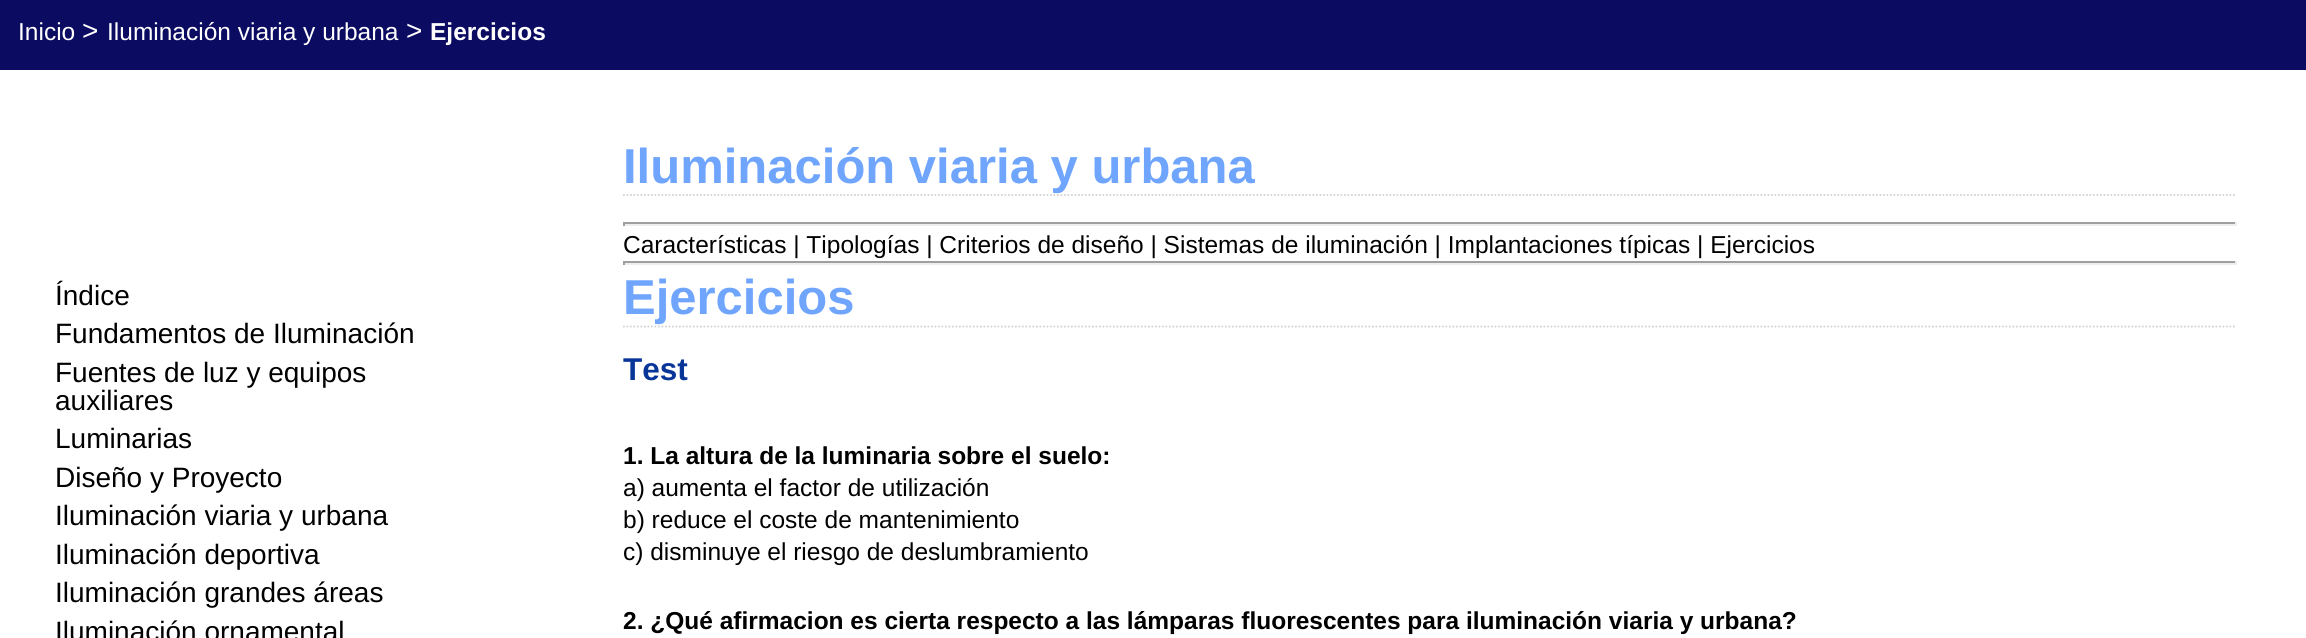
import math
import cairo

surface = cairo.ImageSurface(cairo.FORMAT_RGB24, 2306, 638)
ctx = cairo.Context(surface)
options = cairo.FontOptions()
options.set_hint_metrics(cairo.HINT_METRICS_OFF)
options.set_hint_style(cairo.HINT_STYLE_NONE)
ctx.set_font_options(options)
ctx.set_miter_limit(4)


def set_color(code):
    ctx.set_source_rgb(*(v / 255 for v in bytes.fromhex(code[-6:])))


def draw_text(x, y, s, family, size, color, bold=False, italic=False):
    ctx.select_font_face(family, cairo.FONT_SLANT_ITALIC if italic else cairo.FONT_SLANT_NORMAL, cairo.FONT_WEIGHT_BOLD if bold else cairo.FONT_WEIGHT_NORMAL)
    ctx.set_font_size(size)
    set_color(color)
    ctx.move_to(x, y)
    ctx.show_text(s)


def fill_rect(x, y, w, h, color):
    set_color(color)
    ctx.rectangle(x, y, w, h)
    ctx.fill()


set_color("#ffffff")
ctx.paint()
fill_rect(0, 0, 2306, 70, "#0b0b61")
draw_text(18, 40, "Inicio", "Liberation Sans", 24.5, "#ffffff")
draw_text(82, 40, ">", "Liberation Sans", 28, "#ffffff")
draw_text(107, 40, "Iluminación viaria y urbana", "Liberation Sans", 24.5, "#ffffff")
draw_text(406, 40, ">", "Liberation Sans", 28, "#ffffff")
draw_text(430, 40, "Ejercicios", "Liberation Sans", 24.5, "#ffffff", bold=True)
draw_text(55, 305, "Índice", "Liberation Sans", 28, "#000000")
draw_text(55, 343, "Fundamentos de Iluminación", "Liberation Sans", 28, "#000000")
draw_text(55, 382, "Fuentes de luz y equipos", "Liberation Sans", 28, "#000000")
draw_text(55, 410, "auxiliares", "Liberation Sans", 28, "#000000")
draw_text(55, 448, "Luminarias", "Liberation Sans", 28, "#000000")
draw_text(55, 487, "Diseño y Proyecto", "Liberation Sans", 28, "#000000")
draw_text(55, 525, "Iluminación viaria y urbana", "Liberation Sans", 28, "#000000")
draw_text(55, 564, "Iluminación deportiva", "Liberation Sans", 28, "#000000")
draw_text(55, 602, "Iluminación grandes áreas", "Liberation Sans", 28, "#000000")
draw_text(55, 641, "Iluminación ornamental", "Liberation Sans", 28, "#000000")
ctx.new_path()
ctx.move_to(623, 195)
ctx.line_to(2236.5, 195)
set_color("#d3d3d3")
ctx.set_line_width(1.8)
ctx.set_dash([1.75, 1.75])
ctx.stroke()
draw_text(623, 183, "Iluminación viaria y urbana", "Liberation Sans", 49, "#6fa5fd", bold=True)
fill_rect(623, 222, 1614, 2, "#9f9f9f")
fill_rect(2235, 222, 2, 4, "#eeeeee")
fill_rect(623, 224, 1614, 2, "#eeeeee")
fill_rect(623, 222, 2, 4, "#9f9f9f")
draw_text(623, 253, "Características | Tipologías | Criterios de diseño | Sistemas de iluminación | Implantaciones típicas | Ejercicios", "Liberation Sans", 24.5, "#000000")
fill_rect(623, 261, 1614, 2, "#9f9f9f")
fill_rect(2235, 261, 2, 4, "#eeeeee")
fill_rect(623, 263, 1614, 2, "#eeeeee")
fill_rect(623, 261, 2, 4, "#9f9f9f")
ctx.new_path()
ctx.move_to(623, 326.5)
ctx.line_to(2236.5, 326.5)
set_color("#d3d3d3")
ctx.stroke()
draw_text(623, 314, "Ejercicios", "Liberation Sans", 49, "#6fa5fd", bold=True)
draw_text(623, 380, "Test", "Liberation Sans", 31.5, "#073598", bold=True)
draw_text(623, 464, "1. La altura de la luminaria sobre el suelo:", "Liberation Sans", 24.5, "#000000", bold=True)
draw_text(623, 496, "a) aumenta el factor de utilización", "Liberation Sans", 24.5, "#000000")
draw_text(623, 528, "b) reduce el coste de mantenimiento", "Liberation Sans", 24.5, "#000000")
draw_text(623, 560, "c) disminuye el riesgo de deslumbramiento", "Liberation Sans", 24.5, "#000000")
draw_text(623, 629, "2. ¿Qué afirmacion es cierta respecto a las lámparas fluorescentes para iluminación viaria y urbana?", "Liberation Sans", 24.5, "#000000", bold=True)
surface.write_to_png("output.png")
